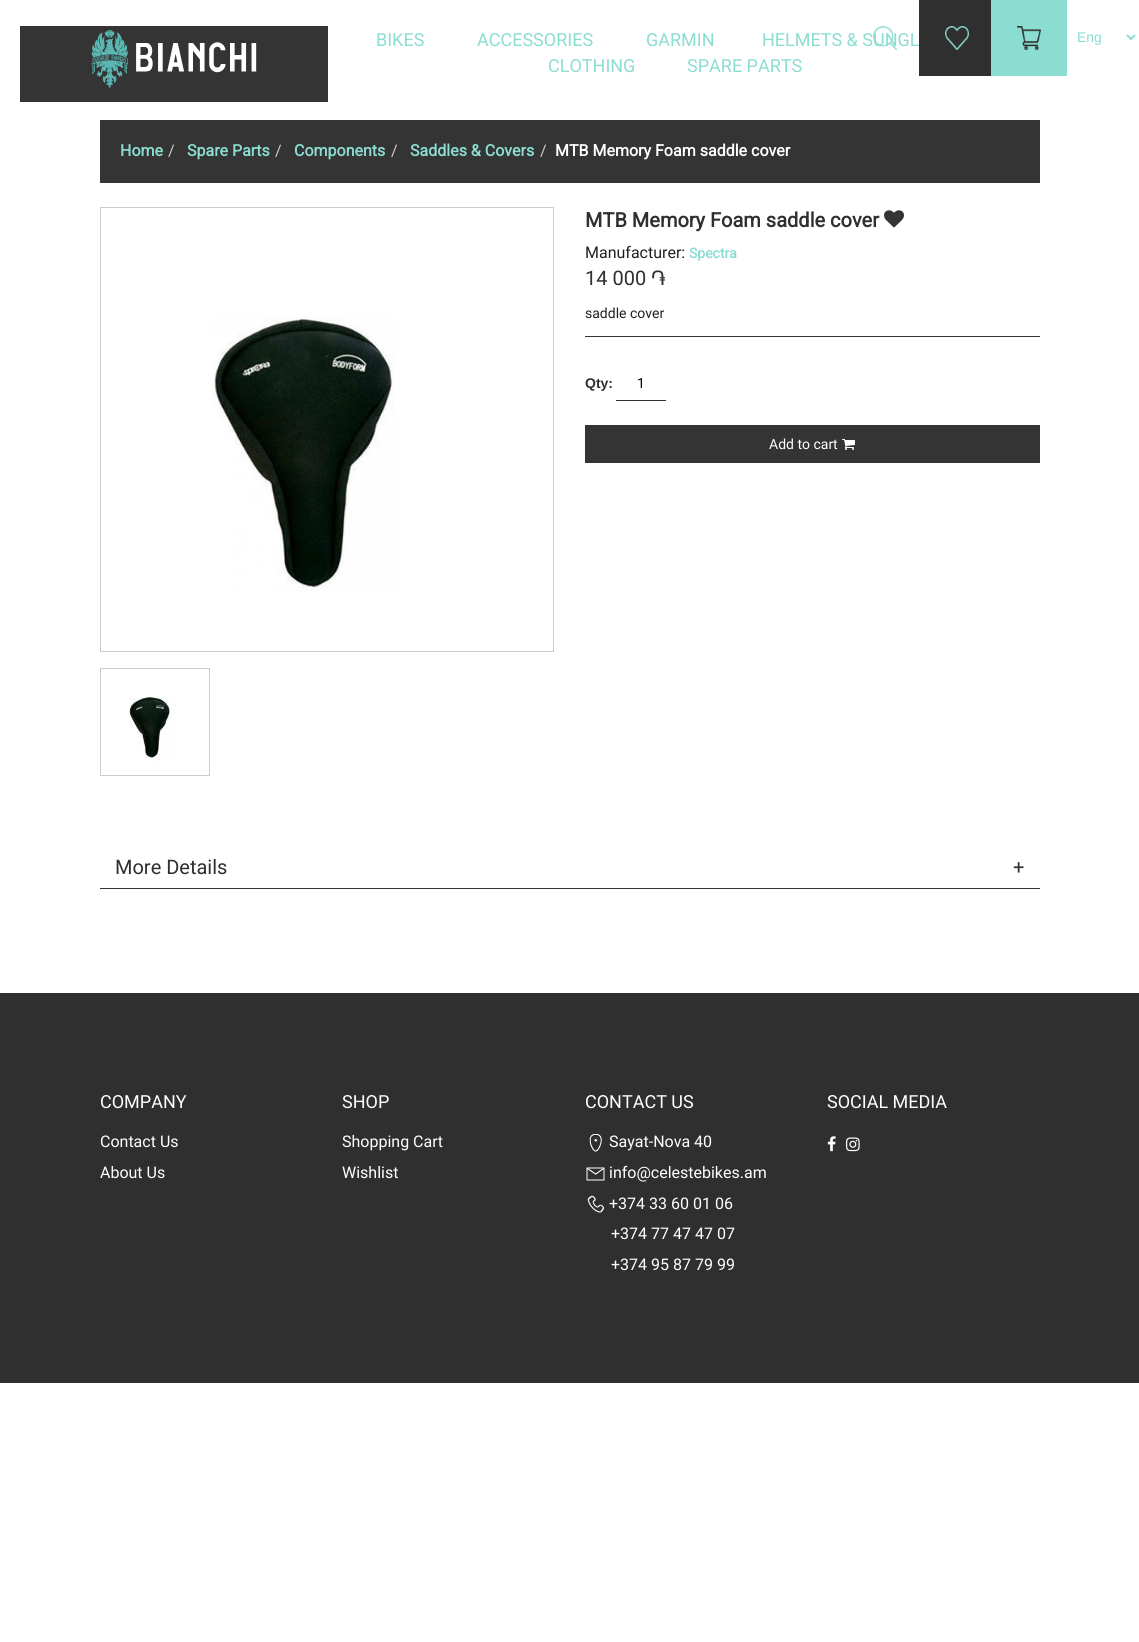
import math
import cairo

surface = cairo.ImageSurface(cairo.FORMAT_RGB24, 1139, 1642)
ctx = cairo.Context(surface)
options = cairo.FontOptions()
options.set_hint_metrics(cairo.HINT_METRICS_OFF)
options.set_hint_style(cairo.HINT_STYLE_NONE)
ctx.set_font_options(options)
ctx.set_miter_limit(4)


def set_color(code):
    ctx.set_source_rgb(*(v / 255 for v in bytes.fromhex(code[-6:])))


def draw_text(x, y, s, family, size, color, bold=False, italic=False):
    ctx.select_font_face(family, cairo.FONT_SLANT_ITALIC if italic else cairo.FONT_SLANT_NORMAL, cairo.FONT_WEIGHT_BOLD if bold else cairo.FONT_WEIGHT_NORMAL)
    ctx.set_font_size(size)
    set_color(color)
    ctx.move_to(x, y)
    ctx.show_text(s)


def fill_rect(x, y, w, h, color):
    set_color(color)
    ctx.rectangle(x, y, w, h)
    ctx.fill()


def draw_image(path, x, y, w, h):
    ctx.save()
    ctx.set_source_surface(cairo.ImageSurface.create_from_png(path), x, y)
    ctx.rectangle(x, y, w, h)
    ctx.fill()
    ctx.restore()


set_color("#ffffff")
ctx.paint()
fill_rect(20, 26, 308, 76, "#343434")
draw_image("assets/img1.png", 91, 30, 166, 58)
draw_text(376, 46, "BIKES", "Roboto", 18, "#8bddd1")
draw_text(477, 46, "ACCESSORIES", "Roboto", 18, "#8bddd1")
draw_text(646, 46, "GARMIN", "Roboto", 18, "#8bddd1")
draw_text(762, 46, "HELMETS & SUNGL", "Roboto", 18, "#8bddd1")
draw_text(548, 72, "CLOTHING", "Roboto", 18, "#8bddd1")
draw_text(687, 72, "SPARE PARTS", "Roboto", 18, "#8bddd1")
draw_image("assets/img2.png", 873, 26, 24, 24)
fill_rect(919, 0, 72, 76, "#2f2f2f")
draw_image("assets/img3.png", 945, 26, 24, 24)
fill_rect(991, 0, 76, 76, "#8bddd1")
draw_image("assets/img4.png", 1017, 26, 24, 24)
ctx.new_path()
ctx.move_to(1127, 35)
ctx.line_to(1131, 39)
ctx.line_to(1135, 35)
ctx.stroke()
draw_text(1077, 42, "Eng", "Liberation Sans", 14, "#8bddd1")
fill_rect(100, 120, 940, 63, "#343434")
draw_text(120, 156, "Home", "Roboto", 16, "#8bddd1", bold=True)
draw_text(168, 156, "/", "Roboto", 16, "#cccccc")
draw_text(187, 156, "Spare Parts", "Roboto", 16, "#8bddd1", bold=True)
draw_text(275, 156, "/", "Roboto", 16, "#cccccc")
draw_text(294, 156, "Components", "Roboto", 16, "#8bddd1", bold=True)
draw_text(391, 156, "/", "Roboto", 16, "#cccccc")
draw_text(410, 156, "Saddles & Covers", "Roboto", 16, "#8bddd1", bold=True)
draw_text(540, 156, "/", "Roboto", 16, "#cccccc")
draw_text(555, 156, "MTB Memory Foam saddle cover", "Roboto", 16, "#ffffff", bold=True)
ctx.rectangle(100.5, 207.5, 453, 444)
set_color("#cccccc")
ctx.set_line_width(1)
ctx.stroke()
draw_image("assets/img5.png", 212, 316, 183, 275)
ctx.rectangle(100.5, 668.5, 109, 107)
ctx.stroke()
draw_image("assets/img6.png", 129, 697, 48, 64)
draw_text(585, 227, "MTB Memory Foam saddle cover", "Roboto", 20, "#2f2f2f", bold=True)
draw_image("assets/img7.png", 884, 210, 20, 18)
draw_text(585, 258, "Manufacturer:", "Roboto", 16, "#231f20")
draw_text(689, 258, "Spectra", "Roboto", 14, "#8bddd1", bold=True)
draw_text(585, 285, "14 000", "Roboto", 20, "#2f2f2f")
draw_text(651, 285, "֏", "FreeSans", 20, "#2f2f2f")
draw_text(585, 318, "saddle cover", "Roboto", 14, "#231f20")
fill_rect(585, 336, 455, 1, "#343434")
draw_text(585, 388, "Qty:", "Liberation Sans", 14, "#2f2f2f", bold=True)
fill_rect(616, 400, 50, 1, "#2f2f2f")
draw_text(637, 388, "1", "Roboto", 14, "#000000")
fill_rect(585, 425, 455, 38, "#343434")
draw_text(769, 449, "Add to cart", "Roboto", 14, "#ffffff")
draw_image("assets/img8.png", 842, 439, 13, 11)
fill_rect(100, 888, 940, 1, "#343434")
draw_text(115, 874, "More Details", "Roboto", 20, "#2f2f2f")
draw_text(1013, 874, "+", "Roboto", 20, "#2f2f2f")
fill_rect(0, 993, 1139, 390, "#2f2f2f")
draw_text(100, 1108, "COMPANY", "Roboto", 18, "#ffffff")
draw_text(100, 1147, "Contact Us", "Roboto", 16, "#ffffff")
draw_text(100, 1178, "About Us", "Roboto", 16, "#ffffff")
draw_text(342, 1108, "SHOP", "Roboto", 18, "#ffffff")
draw_text(342, 1147, "Shopping Cart", "Roboto", 16, "#ffffff")
draw_text(342, 1178, "Wishlist", "Roboto", 16, "#ffffff")
draw_text(585, 1108, "CONTACT US", "Roboto", 18, "#ffffff")
draw_image("assets/img9.png", 589, 1134, 13, 18)
draw_text(609, 1147, "Sayat-Nova 40", "Roboto", 16, "#ffffff")
draw_image("assets/img10.png", 586, 1167, 19, 14)
draw_text(609, 1178, "info@celestebikes.am", "Roboto", 16, "#ffffff")
draw_image("assets/img11.png", 587, 1195, 17, 18)
draw_text(609, 1209, "+374 33 60 01 06", "Roboto", 16, "#ffffff")
draw_text(611, 1239, "+374 77 47 47 07", "Roboto", 16, "#ffffff")
draw_text(611, 1270, "+374 95 87 79 99", "Roboto", 16, "#ffffff")
draw_text(827, 1108, "SOCIAL MEDIA", "Roboto", 18, "#ffffff")
draw_image("assets/img12.png", 827, 1136, 9, 16)
draw_image("assets/img13.png", 846, 1137, 14, 15)
surface.write_to_png("output.png")
